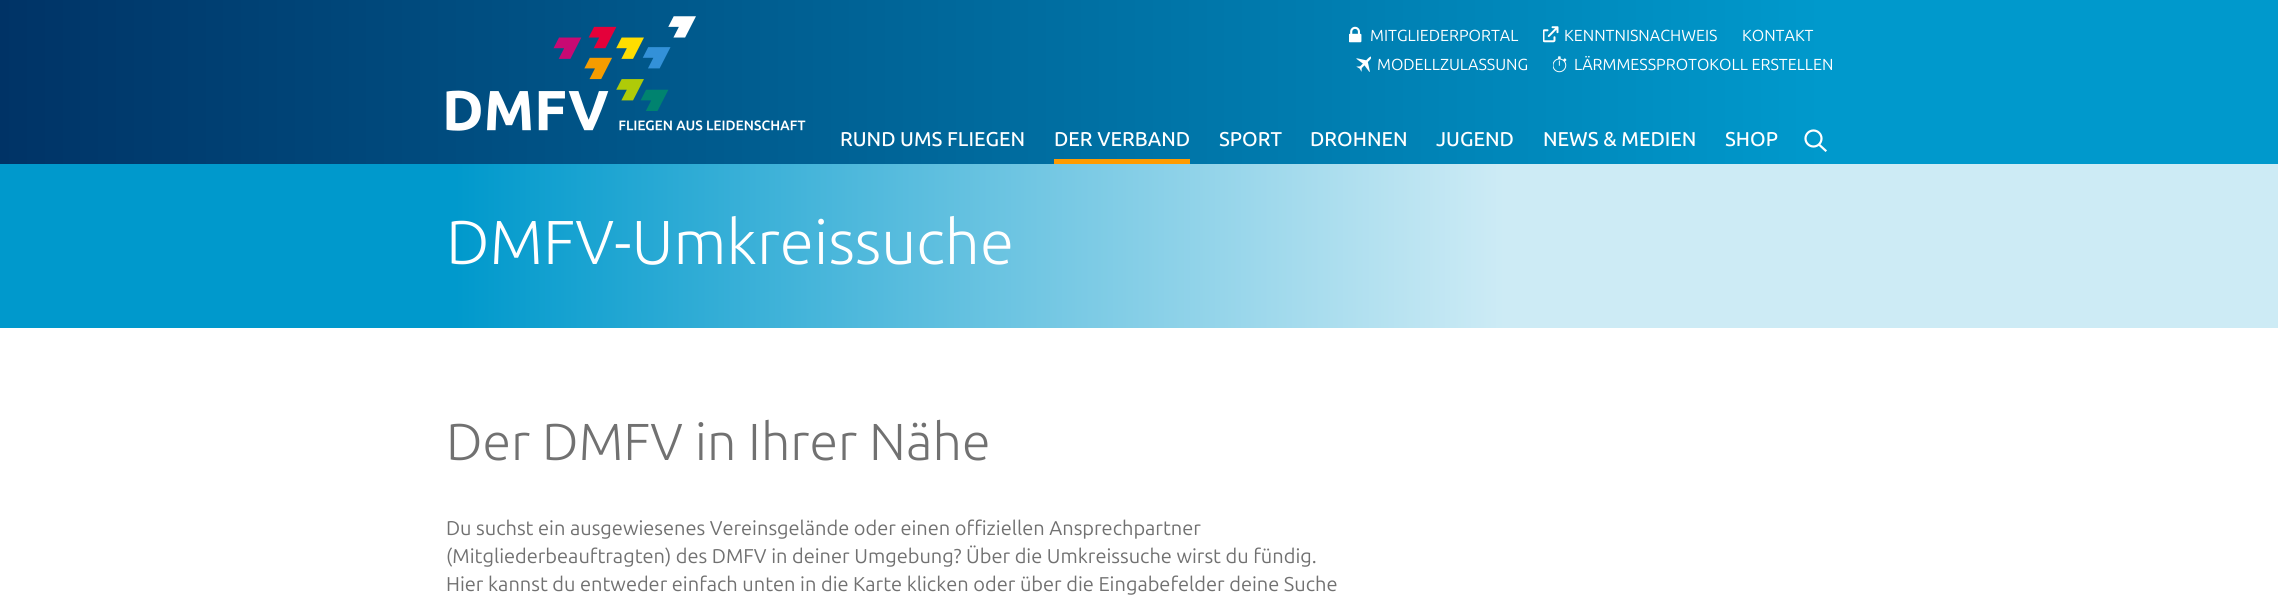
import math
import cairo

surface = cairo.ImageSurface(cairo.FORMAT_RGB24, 2278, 601)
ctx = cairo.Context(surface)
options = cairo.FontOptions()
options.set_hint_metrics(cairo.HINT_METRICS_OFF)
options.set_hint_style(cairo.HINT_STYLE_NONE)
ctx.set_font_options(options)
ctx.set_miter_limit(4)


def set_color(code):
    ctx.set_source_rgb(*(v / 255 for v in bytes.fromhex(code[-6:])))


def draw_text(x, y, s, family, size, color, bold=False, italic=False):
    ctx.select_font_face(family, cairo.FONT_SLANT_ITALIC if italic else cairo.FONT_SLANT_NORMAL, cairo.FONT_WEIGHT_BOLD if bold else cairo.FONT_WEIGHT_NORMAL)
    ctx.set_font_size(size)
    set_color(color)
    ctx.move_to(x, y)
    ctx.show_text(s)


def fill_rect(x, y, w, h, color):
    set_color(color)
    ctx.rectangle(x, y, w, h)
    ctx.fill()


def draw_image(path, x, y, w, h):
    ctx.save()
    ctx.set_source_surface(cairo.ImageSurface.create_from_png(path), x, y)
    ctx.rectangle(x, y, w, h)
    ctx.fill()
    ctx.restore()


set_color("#ffffff")
ctx.paint()
gradient = cairo.LinearGradient(0, 82, 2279, 82)
gradient.add_color_stop_rgba(0, 0, 0.2, 0.4, 1)
gradient.add_color_stop_rgba(0.8, 0, 0.6, 0.8, 1)
ctx.set_source(gradient)
ctx.rectangle(0, 0, 2278, 164)
ctx.fill()
draw_image("assets/img1.png", 446, 16, 360, 115)
draw_image("assets/img2.png", 1349, 26, 13, 17)
draw_text(1370, 41, "MITGLIEDERPORTAL", "Ubuntu", 16, "#ffffff")
draw_image("assets/img3.png", 1543, 26, 16, 17)
draw_text(1564, 41, "KENNTNISNACHWEIS", "Ubuntu", 16, "#ffffff")
draw_text(1742, 41, "KONTAKT", "Ubuntu", 16, "#ffffff")
draw_image("assets/img4.png", 1356, 56, 15, 16)
draw_text(1377, 70, "MODELLZULASSUNG", "Ubuntu", 16, "#ffffff")
draw_image("assets/img5.png", 1553, 56, 14, 17)
draw_text(1574, 70, "LÄRMMESSPROTOKOLL ERSTELLEN", "Ubuntu", 16, "#ffffff")
draw_text(840, 146, "RUND UMS FLIEGEN", "Ubuntu Medium", 20, "#ffffff")
fill_rect(1054, 159, 136, 5, "#ff9b00")
draw_text(1054, 146, "DER VERBAND", "Ubuntu Medium", 20, "#ffffff")
draw_text(1219, 146, "SPORT", "Ubuntu Medium", 20, "#ffffff")
draw_text(1310, 146, "DROHNEN", "Ubuntu Medium", 20, "#ffffff")
draw_text(1436, 146, "JUGEND", "Ubuntu Medium", 20, "#ffffff")
draw_text(1543, 146, "NEWS & MEDIEN", "Ubuntu Medium", 20, "#ffffff")
draw_text(1725, 146, "SHOP", "Ubuntu Medium", 20, "#ffffff")
ctx.new_path()
ctx.arc(1813.5, 138.5, 8, 0, 2 * math.pi)
ctx.set_line_width(2.2)
ctx.stroke()
ctx.new_path()
ctx.move_to(1819.5, 145)
ctx.line_to(1825.5, 150.5)
ctx.set_line_cap(cairo.LINE_CAP_SQUARE)
ctx.stroke()
gradient = cairo.LinearGradient(0, 246, 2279, 246)
gradient.add_color_stop_rgba(0, 0, 0.6, 0.8, 1)
gradient.add_color_stop_rgba(0.2, 0, 0.6, 0.8, 1)
gradient.add_color_stop_rgba(0.66, 0.804, 0.922, 0.961, 1)
gradient.add_color_stop_rgba(1, 0.804, 0.922, 0.961, 1)
ctx.set_source(gradient)
ctx.rectangle(0, 164, 2278, 164)
ctx.fill()
draw_text(446, 264, "DMFV-Umkreissuche", "Ubuntu Light", 62, "#ffffff")
draw_text(446, 460, "Der DMFV in Ihrer Nähe", "Ubuntu Light", 52, "#717171")
draw_text(446, 535, "Du suchst ein ausgewiesenes Vereinsgelände oder einen offiziellen Ansprechpartner", "Ubuntu", 20, "#717171")
draw_text(446, 563, "(Mitgliederbeauftragten) des DMFV in deiner Umgebung? Über die Umkreissuche wirst du fündig.", "Ubuntu", 20, "#717171")
draw_text(446, 591, "Hier kannst du entweder einfach unten in die Karte klicken oder über die Eingabefelder deine Suche", "Ubuntu", 20, "#717171")
surface.write_to_png("output.png")
